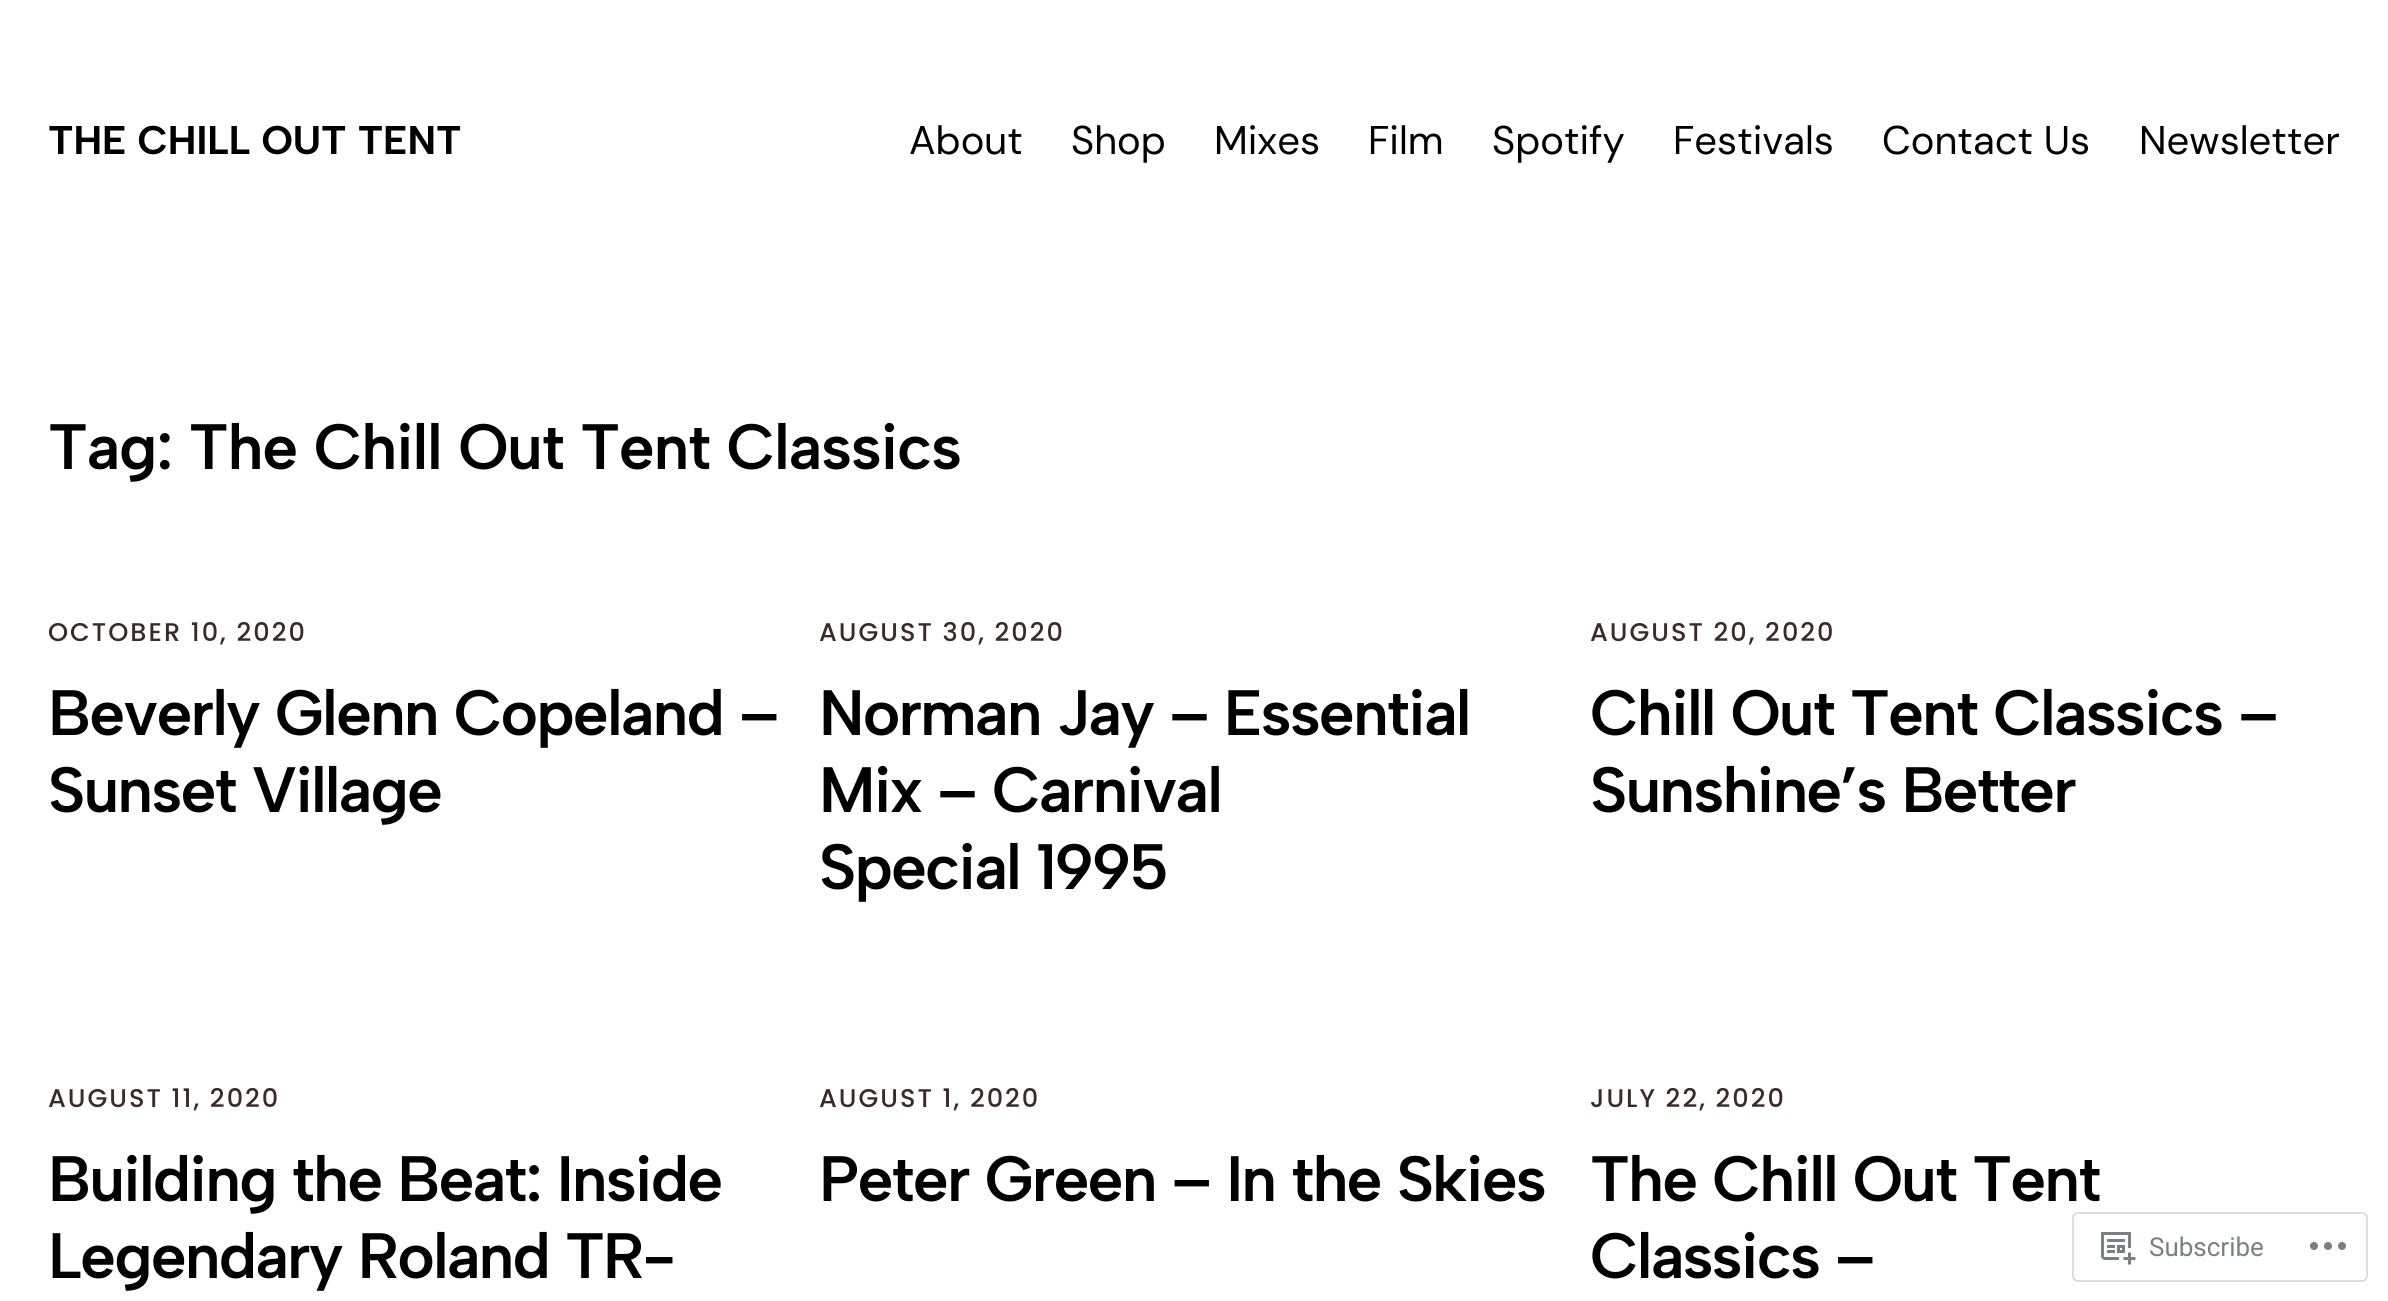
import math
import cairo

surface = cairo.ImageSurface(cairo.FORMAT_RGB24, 2388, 1301)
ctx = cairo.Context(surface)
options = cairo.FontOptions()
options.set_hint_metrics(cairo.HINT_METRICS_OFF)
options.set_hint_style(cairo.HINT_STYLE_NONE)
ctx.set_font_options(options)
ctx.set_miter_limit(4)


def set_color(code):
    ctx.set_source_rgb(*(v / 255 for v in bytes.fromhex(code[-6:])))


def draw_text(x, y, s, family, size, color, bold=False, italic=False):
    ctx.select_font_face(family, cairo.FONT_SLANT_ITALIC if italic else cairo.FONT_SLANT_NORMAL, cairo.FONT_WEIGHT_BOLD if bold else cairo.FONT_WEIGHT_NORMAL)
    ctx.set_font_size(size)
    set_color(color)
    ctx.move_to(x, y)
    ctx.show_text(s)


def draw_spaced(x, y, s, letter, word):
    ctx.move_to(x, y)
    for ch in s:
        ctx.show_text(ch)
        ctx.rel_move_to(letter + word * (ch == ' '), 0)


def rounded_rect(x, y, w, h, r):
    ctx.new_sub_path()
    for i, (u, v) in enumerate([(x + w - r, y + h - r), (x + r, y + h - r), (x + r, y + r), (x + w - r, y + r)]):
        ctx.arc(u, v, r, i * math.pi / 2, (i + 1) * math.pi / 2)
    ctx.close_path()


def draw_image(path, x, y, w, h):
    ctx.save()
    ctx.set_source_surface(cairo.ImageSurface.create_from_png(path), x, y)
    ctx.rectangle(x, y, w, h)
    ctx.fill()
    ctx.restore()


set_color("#ffffff")
ctx.paint()
draw_text(48, 154, "THE CHILL OUT TENT", "Albert Sans", 40, "#000000", bold=True)
draw_text(909, 154, "About", "DM Sans", 40, "#000000")
draw_text(1071, 154, "Shop", "DM Sans", 40, "#000000")
draw_text(1214, 154, "Mixes", "DM Sans", 40, "#000000")
draw_text(1368, 154, "Film", "DM Sans", 40, "#000000")
draw_text(1492, 154, "Spotify", "DM Sans", 40, "#000000")
draw_text(1673, 154, "Festivals", "DM Sans", 40, "#000000")
draw_text(1882, 154, "Contact Us", "DM Sans", 40, "#000000")
draw_text(2139, 154, "Newsletter", "DM Sans", 40, "#000000")
ctx.select_font_face("Albert Sans SemiBold")
ctx.set_font_size(64)
draw_spaced(48, 469, "Tag: The Chill Out Tent Classics", -1.25, 0)
ctx.select_font_face("Poppins Medium")
ctx.set_font_size(25.6)
set_color("#3b2b27")
draw_spaced(48, 641, "OCTOBER 10, 2020", 2, 0)
ctx.select_font_face("Albert Sans SemiBold")
ctx.set_font_size(64)
set_color("#000000")
draw_spaced(48, 735, "Beverly Glenn Copeland –", -1.9, 0)
draw_spaced(48, 812, "Sunset Village", -1.9, 0)
ctx.select_font_face("Poppins Medium")
ctx.set_font_size(25.6)
set_color("#3b2b27")
draw_spaced(819, 641, "AUGUST 30, 2020", 2, 0)
ctx.select_font_face("Albert Sans SemiBold")
ctx.set_font_size(64)
set_color("#000000")
draw_spaced(819, 735, "Norman Jay – Essential", -1.9, 0)
draw_spaced(819, 812, "Mix – Carnival", -1.9, 0)
draw_spaced(819, 889, "Special 1995", -1.9, 0)
ctx.select_font_face("Poppins Medium")
ctx.set_font_size(25.6)
set_color("#3b2b27")
draw_spaced(1590, 641, "AUGUST 20, 2020", 2, 0)
ctx.select_font_face("Albert Sans SemiBold")
ctx.set_font_size(64)
set_color("#000000")
draw_spaced(1590, 735, "Chill Out Tent Classics –", -1.9, 0)
draw_spaced(1590, 812, "Sunshine’s Better", -1.9, 0)
ctx.select_font_face("Poppins Medium")
ctx.set_font_size(25.6)
set_color("#3b2b27")
draw_spaced(48, 1107, "AUGUST 11, 2020", 2, 0)
ctx.select_font_face("Albert Sans SemiBold")
ctx.set_font_size(64)
set_color("#000000")
draw_spaced(48, 1201, "Building the Beat: Inside", -1.9, 0)
draw_spaced(48, 1278, "Legendary Roland TR-", -1.9, 0)
ctx.select_font_face("Poppins Medium")
ctx.set_font_size(25.6)
set_color("#3b2b27")
draw_spaced(819, 1107, "AUGUST 1, 2020", 2, 0)
ctx.select_font_face("Albert Sans SemiBold")
ctx.set_font_size(64)
set_color("#000000")
draw_spaced(819, 1201, "Peter Green – In the Skies", -1.9, 0)
ctx.select_font_face("Poppins Medium")
ctx.set_font_size(25.6)
set_color("#3b2b27")
draw_spaced(1590, 1107, "JULY 22, 2020", 2, 0)
ctx.select_font_face("Albert Sans SemiBold")
ctx.set_font_size(64)
set_color("#000000")
draw_spaced(1590, 1201, "The Chill Out Tent", -1.9, 0)
draw_spaced(1590, 1278, "Classics –", -1.9, 0)
rounded_rect(2073, 1213, 294, 68, 5)
set_color("#dddddf")
ctx.stroke()
draw_image("assets/img1.png", 2101, 1232, 35, 33)
draw_text(2149, 1256, "Subscribe", "Roboto", 26, "#7b7f85")
draw_image("assets/img2.png", 2310, 1242, 36, 8)
surface.write_to_png("output.png")
